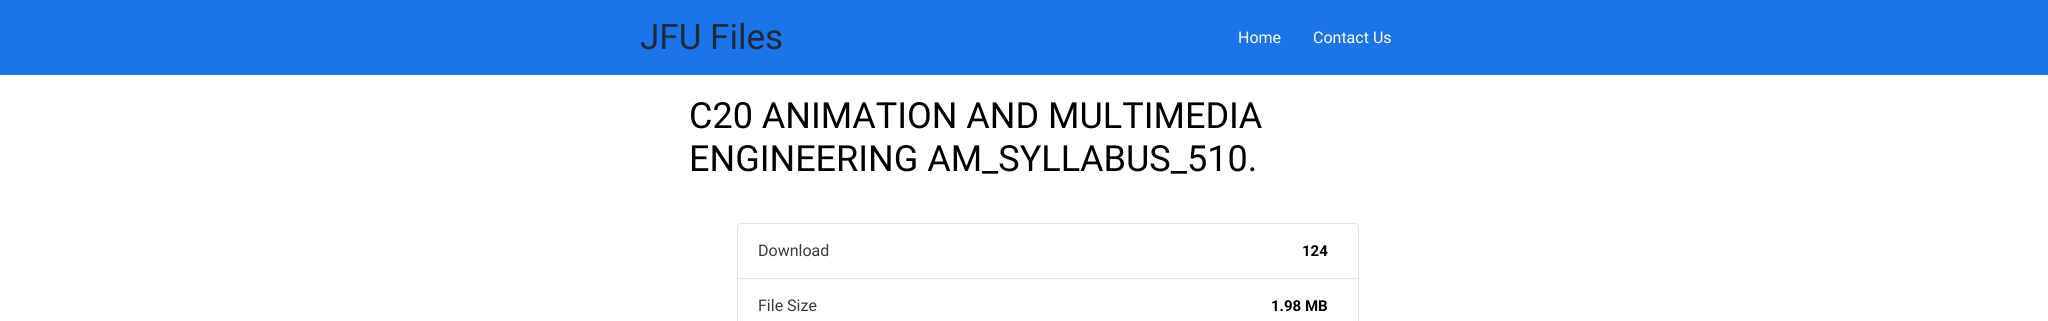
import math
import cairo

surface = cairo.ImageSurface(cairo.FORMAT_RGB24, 2048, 321)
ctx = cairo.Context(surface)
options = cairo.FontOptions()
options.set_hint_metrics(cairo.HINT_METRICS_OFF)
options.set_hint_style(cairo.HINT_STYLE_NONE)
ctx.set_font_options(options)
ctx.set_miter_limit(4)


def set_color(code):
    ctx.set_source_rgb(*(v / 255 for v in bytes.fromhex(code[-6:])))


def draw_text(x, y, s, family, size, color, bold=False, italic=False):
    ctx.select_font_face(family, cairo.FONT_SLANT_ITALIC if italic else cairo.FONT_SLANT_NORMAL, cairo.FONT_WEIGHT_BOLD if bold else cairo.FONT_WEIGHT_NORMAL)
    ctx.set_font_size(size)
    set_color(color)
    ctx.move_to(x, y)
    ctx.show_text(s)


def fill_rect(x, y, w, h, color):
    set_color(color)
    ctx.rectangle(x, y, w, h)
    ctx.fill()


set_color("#ffffff")
ctx.paint()
fill_rect(0, 0, 2048, 75, "#1c74e9")
draw_text(640, 49, "JFU Files", "Roboto", 35, "#1e293b")
draw_text(1238, 43, "Home", "Roboto", 16, "#ffffff")
draw_text(1313, 43, "Contact Us", "Roboto", 16, "#ffffff")
draw_text(689, 128, "C20 ANIMATION AND MULTIMEDIA", "Roboto", 36, "#000000")
draw_text(689, 171, "ENGINEERING AM_SYLLABUS_510.", "Roboto", 36, "#000000")
ctx.new_path()
ctx.move_to(741, 223.5)
ctx.line_to(1355, 223.5)
ctx.curve_to(1357, 223.5, 1358.5, 225, 1358.5, 227)
ctx.line_to(1358.5, 278.5)
ctx.line_to(737.5, 278.5)
ctx.line_to(737.5, 227)
ctx.curve_to(737.5, 225, 739, 223.5, 741, 223.5)
ctx.close_path()
set_color("#e5e5e5")
ctx.set_line_width(1)
ctx.stroke()
draw_text(758, 256, "Download", "Roboto", 16, "#3a3a3a")
draw_text(1302, 256, "124", "Roboto", 15, "#000000", bold=True)
ctx.rectangle(737.5, 278.5, 621, 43)
set_color("#e5e5e5")
ctx.stroke()
draw_text(758, 311, "File Size", "Roboto", 16, "#3a3a3a")
draw_text(1271, 311, "1.98 MB", "Roboto", 15, "#000000", bold=True)
surface.write_to_png("output.png")
